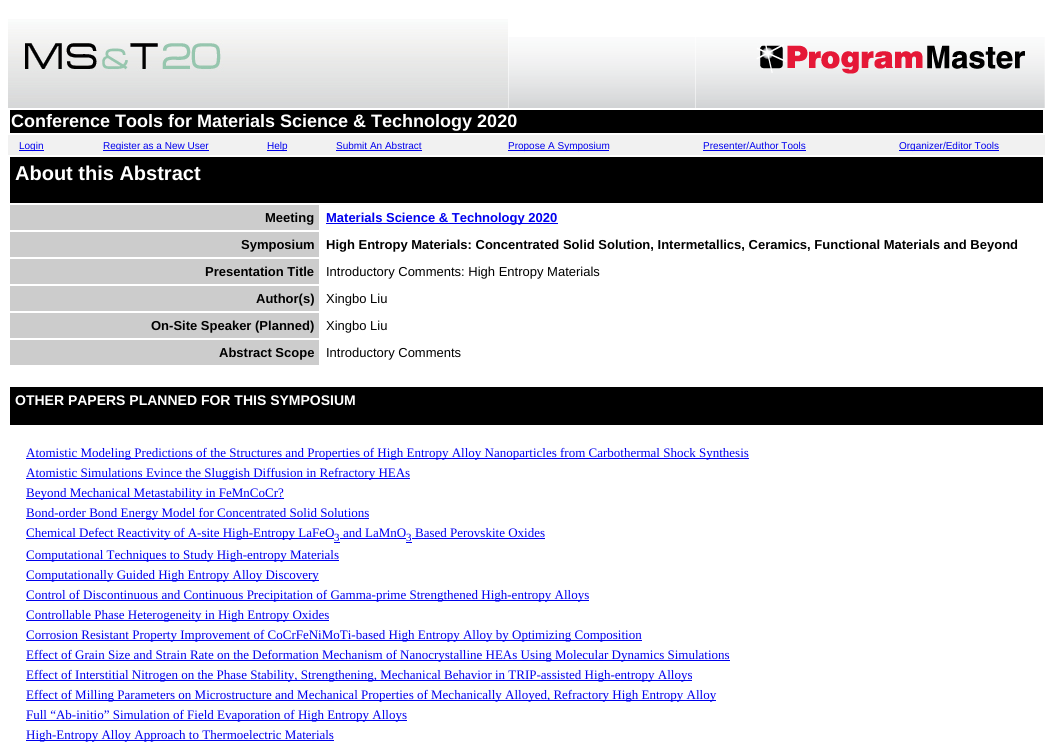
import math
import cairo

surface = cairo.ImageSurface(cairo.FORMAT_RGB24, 1053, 755)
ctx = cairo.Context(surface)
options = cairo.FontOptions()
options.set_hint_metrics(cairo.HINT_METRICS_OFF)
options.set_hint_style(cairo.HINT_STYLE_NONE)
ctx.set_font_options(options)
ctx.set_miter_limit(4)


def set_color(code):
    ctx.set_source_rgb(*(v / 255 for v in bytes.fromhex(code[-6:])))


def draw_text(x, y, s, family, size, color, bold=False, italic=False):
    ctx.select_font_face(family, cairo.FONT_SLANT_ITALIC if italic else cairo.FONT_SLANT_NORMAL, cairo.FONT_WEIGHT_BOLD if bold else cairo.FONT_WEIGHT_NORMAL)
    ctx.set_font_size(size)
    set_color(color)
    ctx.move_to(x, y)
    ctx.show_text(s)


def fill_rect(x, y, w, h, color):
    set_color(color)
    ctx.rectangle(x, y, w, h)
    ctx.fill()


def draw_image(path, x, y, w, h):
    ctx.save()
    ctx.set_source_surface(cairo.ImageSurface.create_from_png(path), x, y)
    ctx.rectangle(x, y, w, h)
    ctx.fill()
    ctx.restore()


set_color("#ffffff")
ctx.paint()
draw_image("assets/img1.png", 8, 19, 500, 89)
draw_image("assets/img2.png", 508, 37, 187, 71)
draw_image("assets/img3.png", 695, 37, 350, 71)
fill_rect(10, 110, 1033, 23, "#000000")
draw_text(11, 127, "Conference Tools for Materials Science & Technology 2020", "Liberation Sans", 18, "#ffffff", bold=True)
fill_rect(8, 135, 1037, 20, "#f1f1f1")
fill_rect(19, 150, 25, 1, "#0000ee")
draw_text(19, 149, "Login", "Liberation Sans", 10, "#0000ee")
fill_rect(103, 150, 106, 1, "#0000ee")
draw_text(103, 149, "Register as a New User", "Liberation Sans", 10, "#0000ee")
fill_rect(267, 150, 20, 1, "#0000ee")
draw_text(267, 149, "Help", "Liberation Sans", 10, "#0000ee")
draw_text(336, 149, "Submit An Abstract", "Liberation Sans", 10, "#0000ee")
fill_rect(336, 150, 86, 1, "#0000ee")
fill_rect(508, 150, 101, 1, "#0000ee")
draw_text(508, 149, "Propose A Symposium", "Liberation Sans", 10, "#0000ee")
draw_text(703, 149, "Presenter/Author Tools", "Liberation Sans", 10, "#0000ee")
fill_rect(703, 150, 103, 1, "#0000ee")
fill_rect(899, 150, 100, 1, "#0000ee")
draw_text(899, 149, "Organizer/Editor Tools", "Liberation Sans", 10, "#0000ee")
fill_rect(10, 157, 1033, 46, "#000000")
draw_text(15, 180, "About this Abstract", "Liberation Sans", 20, "#ffffff", bold=True)
fill_rect(10, 205, 309, 25, "#cccccc")
draw_text(265, 222, "Meeting", "Liberation Sans", 13, "#000000", bold=True)
fill_rect(326, 223, 232, 1, "#0000ee")
draw_text(326, 222, "Materials Science & Technology 2020", "Liberation Sans", 13, "#0000ee", bold=True)
fill_rect(10, 232, 309, 25, "#cccccc")
draw_text(241, 249, "Symposium", "Liberation Sans", 13, "#000000", bold=True)
draw_text(326, 249, "High Entropy Materials: Concentrated Solid Solution, Intermetallics, Ceramics, Functional Materials and Beyond", "Liberation Sans", 13, "#000000", bold=True)
fill_rect(10, 259, 309, 25, "#cccccc")
draw_text(205, 276, "Presentation Title", "Liberation Sans", 13, "#000000", bold=True)
draw_text(326, 276, "Introductory Comments: High Entropy Materials", "Liberation Sans", 13, "#000000")
fill_rect(10, 286, 309, 25, "#cccccc")
draw_text(256, 303, "Author(s)", "Liberation Sans", 13, "#000000", bold=True)
draw_text(326, 303, "Xingbo Liu", "Liberation Sans", 13, "#000000")
fill_rect(10, 313, 309, 25, "#cccccc")
draw_text(151, 330, "On-Site Speaker (Planned)", "Liberation Sans", 13, "#000000", bold=True)
draw_text(326, 330, "Xingbo Liu", "Liberation Sans", 13, "#000000")
fill_rect(10, 340, 309, 25, "#cccccc")
draw_text(219, 357, "Abstract Scope", "Liberation Sans", 13, "#000000", bold=True)
draw_text(326, 357, "Introductory Comments", "Liberation Sans", 13, "#000000")
fill_rect(10, 387, 1033, 38, "#000000")
draw_text(15, 405, "OTHER PAPERS PLANNED FOR THIS SYMPOSIUM", "Liberation Sans", 14, "#ffffff", bold=True)
fill_rect(26, 458, 723, 1, "#0000ee")
draw_text(26, 457, "Atomistic Modeling Predictions of the Structures and Properties of High Entropy Alloy Nanoparticles from Carbothermal Shock Synthesis", "Liberation Serif", 13, "#0000ee")
fill_rect(26, 478, 384, 1, "#0000ee")
draw_text(26, 477, "Atomistic Simulations Evince the Sluggish Diffusion in Refractory HEAs", "Liberation Serif", 13, "#0000ee")
fill_rect(26, 498, 258, 1, "#0000ee")
draw_text(26, 497, "Beyond Mechanical Metastability in FeMnCoCr?", "Liberation Serif", 13, "#0000ee")
fill_rect(26, 518, 343, 1, "#0000ee")
draw_text(26, 517, "Bond-order Bond Energy Model for Concentrated Solid Solutions", "Liberation Serif", 13, "#0000ee")
fill_rect(26, 538, 308, 1, "#0000ee")
draw_text(26, 537, "Chemical Defect Reactivity of A-site High-Entropy LaFeO", "Liberation Serif", 13, "#0000ee")
draw_text(334, 541, "3", "Liberation Serif", 11, "#0000ee")
fill_rect(334, 542, 6, 1, "#0000ee")
fill_rect(340, 538, 66, 1, "#0000ee")
draw_text(343, 537, "and LaMnO", "Liberation Serif", 13, "#0000ee")
draw_text(406, 541, "3", "Liberation Serif", 11, "#0000ee")
fill_rect(406, 542, 6, 1, "#0000ee")
fill_rect(412, 538, 133, 1, "#0000ee")
draw_text(415, 537, "Based Perovskite Oxides", "Liberation Serif", 13, "#0000ee")
fill_rect(26, 560, 313, 1, "#0000ee")
draw_text(26, 559, "Computational Techniques to Study High-entropy Materials", "Liberation Serif", 13, "#0000ee")
fill_rect(26, 580, 293, 1, "#0000ee")
draw_text(26, 579, "Computationally Guided High Entropy Alloy Discovery", "Liberation Serif", 13, "#0000ee")
fill_rect(26, 600, 563, 1, "#0000ee")
draw_text(26, 599, "Control of Discontinuous and Continuous Precipitation of Gamma-prime Strengthened High-entropy Alloys", "Liberation Serif", 13, "#0000ee")
fill_rect(26, 620, 303, 1, "#0000ee")
draw_text(26, 619, "Controllable Phase Heterogeneity in High Entropy Oxides", "Liberation Serif", 13, "#0000ee")
fill_rect(26, 640, 616, 1, "#0000ee")
draw_text(26, 639, "Corrosion Resistant Property Improvement of CoCrFeNiMoTi-based High Entropy Alloy by Optimizing Composition", "Liberation Serif", 13, "#0000ee")
fill_rect(26, 660, 704, 1, "#0000ee")
draw_text(26, 659, "Effect of Grain Size and Strain Rate on the Deformation Mechanism of Nanocrystalline HEAs Using Molecular Dynamics Simulations", "Liberation Serif", 13, "#0000ee")
fill_rect(26, 680, 666, 1, "#0000ee")
draw_text(26, 679, "Effect of Interstitial Nitrogen on the Phase Stability, Strengthening, Mechanical Behavior in TRIP-assisted High-entropy Alloys", "Liberation Serif", 13, "#0000ee")
fill_rect(26, 700, 690, 1, "#0000ee")
draw_text(26, 699, "Effect of Milling Parameters on Microstructure and Mechanical Properties of Mechanically Alloyed, Refractory High Entropy Alloy", "Liberation Serif", 13, "#0000ee")
fill_rect(26, 720, 381, 1, "#0000ee")
draw_text(26, 719, "Full “Ab-initio” Simulation of Field Evaporation of High Entropy Alloys", "Liberation Serif", 13, "#0000ee")
fill_rect(26, 740, 308, 1, "#0000ee")
draw_text(26, 739, "High-Entropy Alloy Approach to Thermoelectric Materials", "Liberation Serif", 13, "#0000ee")
surface.write_to_png("output.png")
